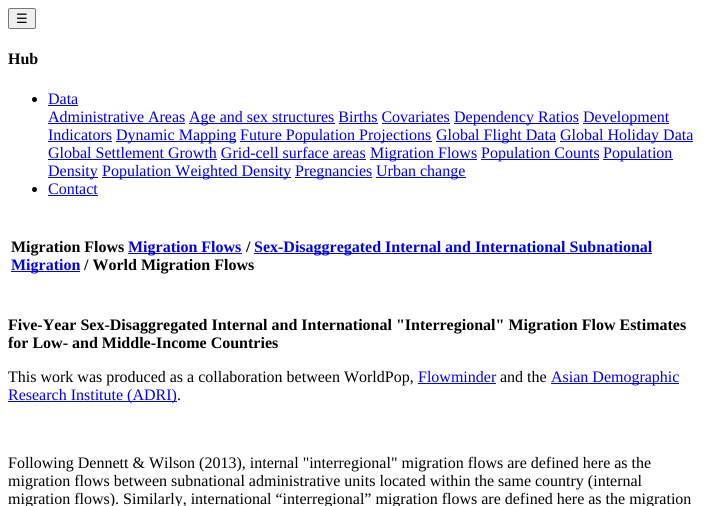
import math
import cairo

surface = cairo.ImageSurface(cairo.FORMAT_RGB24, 713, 506)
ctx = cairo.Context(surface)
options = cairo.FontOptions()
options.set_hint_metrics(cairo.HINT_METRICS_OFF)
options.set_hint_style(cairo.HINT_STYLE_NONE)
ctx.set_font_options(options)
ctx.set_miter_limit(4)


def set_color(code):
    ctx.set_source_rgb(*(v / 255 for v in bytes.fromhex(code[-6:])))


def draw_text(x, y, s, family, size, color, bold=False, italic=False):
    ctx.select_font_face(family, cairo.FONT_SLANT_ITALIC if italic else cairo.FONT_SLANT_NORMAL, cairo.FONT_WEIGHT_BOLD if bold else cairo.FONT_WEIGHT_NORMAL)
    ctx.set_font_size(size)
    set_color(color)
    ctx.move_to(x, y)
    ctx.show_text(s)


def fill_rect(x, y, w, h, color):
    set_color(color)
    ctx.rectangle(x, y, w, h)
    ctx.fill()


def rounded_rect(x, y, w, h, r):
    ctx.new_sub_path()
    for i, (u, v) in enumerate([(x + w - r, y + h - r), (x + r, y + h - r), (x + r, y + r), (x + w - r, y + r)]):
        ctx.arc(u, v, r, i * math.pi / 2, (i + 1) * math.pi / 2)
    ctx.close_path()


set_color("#ffffff")
ctx.paint()
set_color("#efefef")
rounded_rect(8.5, 8.5, 27, 20, 1.5)
ctx.fill_preserve()
set_color("#767676")
ctx.set_line_width(1)
ctx.stroke()
draw_text(16, 23, "☰", "DejaVu Sans", 13, "#000000")
draw_text(8, 64, "Hub", "Liberation Serif", 16, "#000000", bold=True)
ctx.new_path()
ctx.arc(34.5, 99.5, 2.5, 0, 2 * math.pi)
ctx.fill()
draw_text(48, 104, "Data", "Liberation Serif", 16, "#0000ee")
fill_rect(48, 105, 30, 1, "#0000ee")
draw_text(48, 122, "Administrative Areas", "Liberation Serif", 16, "#0000ee")
fill_rect(48, 123, 137, 1, "#0000ee")
fill_rect(189, 123, 146, 1, "#0000ee")
draw_text(189, 122, "Age and sex structures Births Covariates", "Liberation Serif", 16, "#0000ee")
fill_rect(454, 123, 125, 1, "#0000ee")
draw_text(454, 122, "Dependency Ratios", "Liberation Serif", 16, "#0000ee")
fill_rect(583, 123, 86, 1, "#0000ee")
draw_text(583, 122, "Development", "Liberation Serif", 16, "#0000ee")
fill_rect(339, 123, 39, 1, "#0000ee")
fill_rect(382, 123, 68, 1, "#0000ee")
draw_text(48, 140, "Indicators", "Liberation Serif", 16, "#0000ee")
fill_rect(48, 141, 64, 1, "#0000ee")
fill_rect(116, 141, 120, 1, "#0000ee")
draw_text(116, 140, "Dynamic Mapping", "Liberation Serif", 16, "#0000ee")
fill_rect(240, 141, 192, 1, "#0000ee")
draw_text(240, 140, "Future Population Projections", "Liberation Serif", 16, "#0000ee")
fill_rect(436, 141, 120, 1, "#0000ee")
draw_text(436, 140, "Global Flight Data", "Liberation Serif", 16, "#0000ee")
fill_rect(560, 141, 133, 1, "#0000ee")
draw_text(560, 140, "Global Holiday Data", "Liberation Serif", 16, "#0000ee")
draw_text(48, 158, "Global Settlement Growth Grid-cell surface areas", "Liberation Serif", 16, "#0000ee")
fill_rect(48, 159, 169, 1, "#0000ee")
fill_rect(370, 159, 107, 1, "#0000ee")
draw_text(370, 158, "Migration Flows", "Liberation Serif", 16, "#0000ee")
fill_rect(481, 159, 118, 1, "#0000ee")
draw_text(481, 158, "Population Counts", "Liberation Serif", 16, "#0000ee")
fill_rect(603, 159, 70, 1, "#0000ee")
draw_text(603, 158, "Population", "Liberation Serif", 16, "#0000ee")
fill_rect(221, 159, 145, 1, "#0000ee")
fill_rect(48, 177, 50, 1, "#0000ee")
draw_text(48, 176, "Density", "Liberation Serif", 16, "#0000ee")
fill_rect(102, 177, 189, 1, "#0000ee")
draw_text(102, 176, "Population Weighted Density", "Liberation Serif", 16, "#0000ee")
fill_rect(295, 177, 77, 1, "#0000ee")
draw_text(295, 176, "Pregnancies", "Liberation Serif", 16, "#0000ee")
fill_rect(376, 177, 90, 1, "#0000ee")
draw_text(376, 176, "Urban change", "Liberation Serif", 16, "#0000ee")
set_color("#000000")
ctx.new_path()
ctx.arc(34.5, 189.5, 2.5, 0, 2 * math.pi)
ctx.fill()
draw_text(48, 194, "Contact", "Liberation Serif", 16, "#0000ee")
fill_rect(48, 195, 50, 1, "#0000ee")
draw_text(11, 252, "Migration Flows", "Liberation Serif", 16, "#000000", bold=True)
fill_rect(128, 253, 114, 1, "#0000ee")
draw_text(128, 252, "Migration Flows", "Liberation Serif", 16, "#0000ee", bold=True)
draw_text(246, 252, "/", "Liberation Serif", 16, "#000000", bold=True)
fill_rect(254, 253, 398, 1, "#0000ee")
draw_text(254, 252, "Sex-Disaggregated Internal and International Subnational", "Liberation Serif", 16, "#0000ee", bold=True)
fill_rect(11, 271, 69, 1, "#0000ee")
draw_text(11, 270, "Migration", "Liberation Serif", 16, "#0000ee", bold=True)
draw_text(84, 270, "/ World Migration Flows", "Liberation Serif", 16, "#000000", bold=True)
draw_text(8, 330, "Five-Year Sex-Disaggregated Internal and International \"Interregional\" Migration Flow Estimates", "Liberation Serif", 16, "#000000", bold=True)
draw_text(8, 348, "for Low- and Middle-Income Countries", "Liberation Serif", 16, "#000000", bold=True)
draw_text(8, 382, "This work was produced as a collaboration between WorldPop,", "Liberation Serif", 16, "#000000")
draw_text(418, 382, "Flowminder", "Liberation Serif", 16, "#0000ee")
fill_rect(418, 383, 78, 1, "#0000ee")
draw_text(500, 382, "and the", "Liberation Serif", 16, "#000000")
fill_rect(551, 383, 128, 1, "#0000ee")
draw_text(551, 382, "Asian Demographic", "Liberation Serif", 16, "#0000ee")
fill_rect(8, 401, 169, 1, "#0000ee")
draw_text(8, 400, "Research Institute (ADRI)", "Liberation Serif", 16, "#0000ee")
draw_text(177, 400, ".", "Liberation Serif", 16, "#000000")
draw_text(8, 468, "Following Dennett & Wilson (2013), internal \"interregional\" migration flows are defined here as the", "Liberation Serif", 16, "#000000")
draw_text(8, 486, "migration flows between subnational administrative units located within the same country (internal", "Liberation Serif", 16, "#000000")
draw_text(8, 504, "migration flows). Similarly, international “interregional” migration flows are defined here as the migration", "Liberation Serif", 16, "#000000")
surface.write_to_png("output.png")
